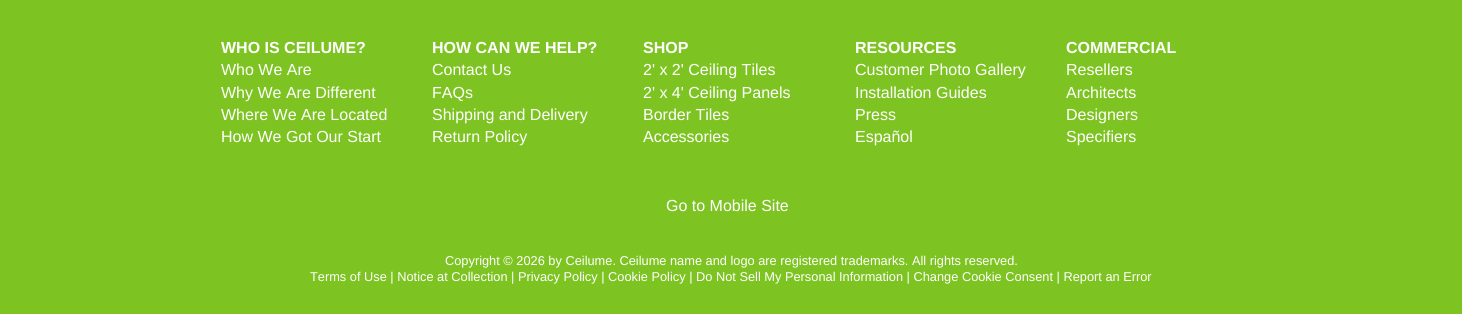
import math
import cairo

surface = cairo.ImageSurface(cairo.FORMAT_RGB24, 1462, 314)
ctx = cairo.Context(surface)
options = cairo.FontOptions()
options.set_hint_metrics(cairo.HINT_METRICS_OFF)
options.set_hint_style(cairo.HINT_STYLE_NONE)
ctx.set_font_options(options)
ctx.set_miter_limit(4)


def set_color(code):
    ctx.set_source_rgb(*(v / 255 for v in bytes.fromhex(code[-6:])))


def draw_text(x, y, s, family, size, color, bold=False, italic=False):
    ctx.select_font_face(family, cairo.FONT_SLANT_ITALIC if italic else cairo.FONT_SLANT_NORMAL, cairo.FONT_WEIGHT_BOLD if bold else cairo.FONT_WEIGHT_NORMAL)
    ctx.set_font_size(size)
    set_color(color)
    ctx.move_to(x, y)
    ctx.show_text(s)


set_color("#7dc422")
ctx.paint()
draw_text(221, 53, "WHO IS CEILUME?", "Liberation Sans", 16, "#ffffff", bold=True)
draw_text(221, 75, "Who We Are", "Liberation Sans", 16, "#ffffff")
draw_text(221, 98, "Why We Are Different", "Liberation Sans", 16, "#ffffff")
draw_text(221, 120, "Where We Are Located", "Liberation Sans", 16, "#ffffff")
draw_text(221, 142, "How We Got Our Start", "Liberation Sans", 16, "#ffffff")
draw_text(432, 53, "HOW CAN WE HELP?", "Liberation Sans", 16, "#ffffff", bold=True)
draw_text(432, 75, "Contact Us", "Liberation Sans", 16, "#ffffff")
draw_text(432, 98, "FAQs", "Liberation Sans", 16, "#ffffff")
draw_text(432, 120, "Shipping and Delivery", "Liberation Sans", 16, "#ffffff")
draw_text(432, 142, "Return Policy", "Liberation Sans", 16, "#ffffff")
draw_text(643, 53, "SHOP", "Liberation Sans", 16, "#ffffff", bold=True)
draw_text(643, 75, "2' x 2' Ceiling Tiles", "Liberation Sans", 16, "#ffffff")
draw_text(643, 98, "2' x 4' Ceiling Panels", "Liberation Sans", 16, "#ffffff")
draw_text(643, 120, "Border Tiles", "Liberation Sans", 16, "#ffffff")
draw_text(643, 142, "Accessories", "Liberation Sans", 16, "#ffffff")
draw_text(855, 53, "RESOURCES", "Liberation Sans", 16, "#ffffff", bold=True)
draw_text(855, 75, "Customer Photo Gallery", "Liberation Sans", 16, "#ffffff")
draw_text(855, 98, "Installation Guides", "Liberation Sans", 16, "#ffffff")
draw_text(855, 120, "Press", "Liberation Sans", 16, "#ffffff")
draw_text(855, 142, "Español", "Liberation Sans", 16, "#ffffff")
draw_text(1066, 53, "COMMERCIAL", "Liberation Sans", 16, "#ffffff", bold=True)
draw_text(1066, 75, "Resellers", "Liberation Sans", 16, "#ffffff")
draw_text(1066, 98, "Architects", "Liberation Sans", 16, "#ffffff")
draw_text(1066, 120, "Designers", "Liberation Sans", 16, "#ffffff")
draw_text(1066, 142, "Specifiers", "Liberation Sans", 16, "#ffffff")
draw_text(666, 211, "Go to Mobile Site", "Liberation Sans", 16, "#ffffff")
draw_text(445, 265, "Copyright © 2026 by Ceilume. Ceilume name and logo are registered trademarks. All rights reserved.", "Liberation Sans", 12.8, "#ffffff")
draw_text(310, 281, "Terms of Use | Notice at Collection | Privacy Policy | Cookie Policy | Do Not Sell My Personal Information | Change Cookie Consent | Report an Error", "Liberation Sans", 12.8, "#ffffff")
surface.write_to_png("output.png")
